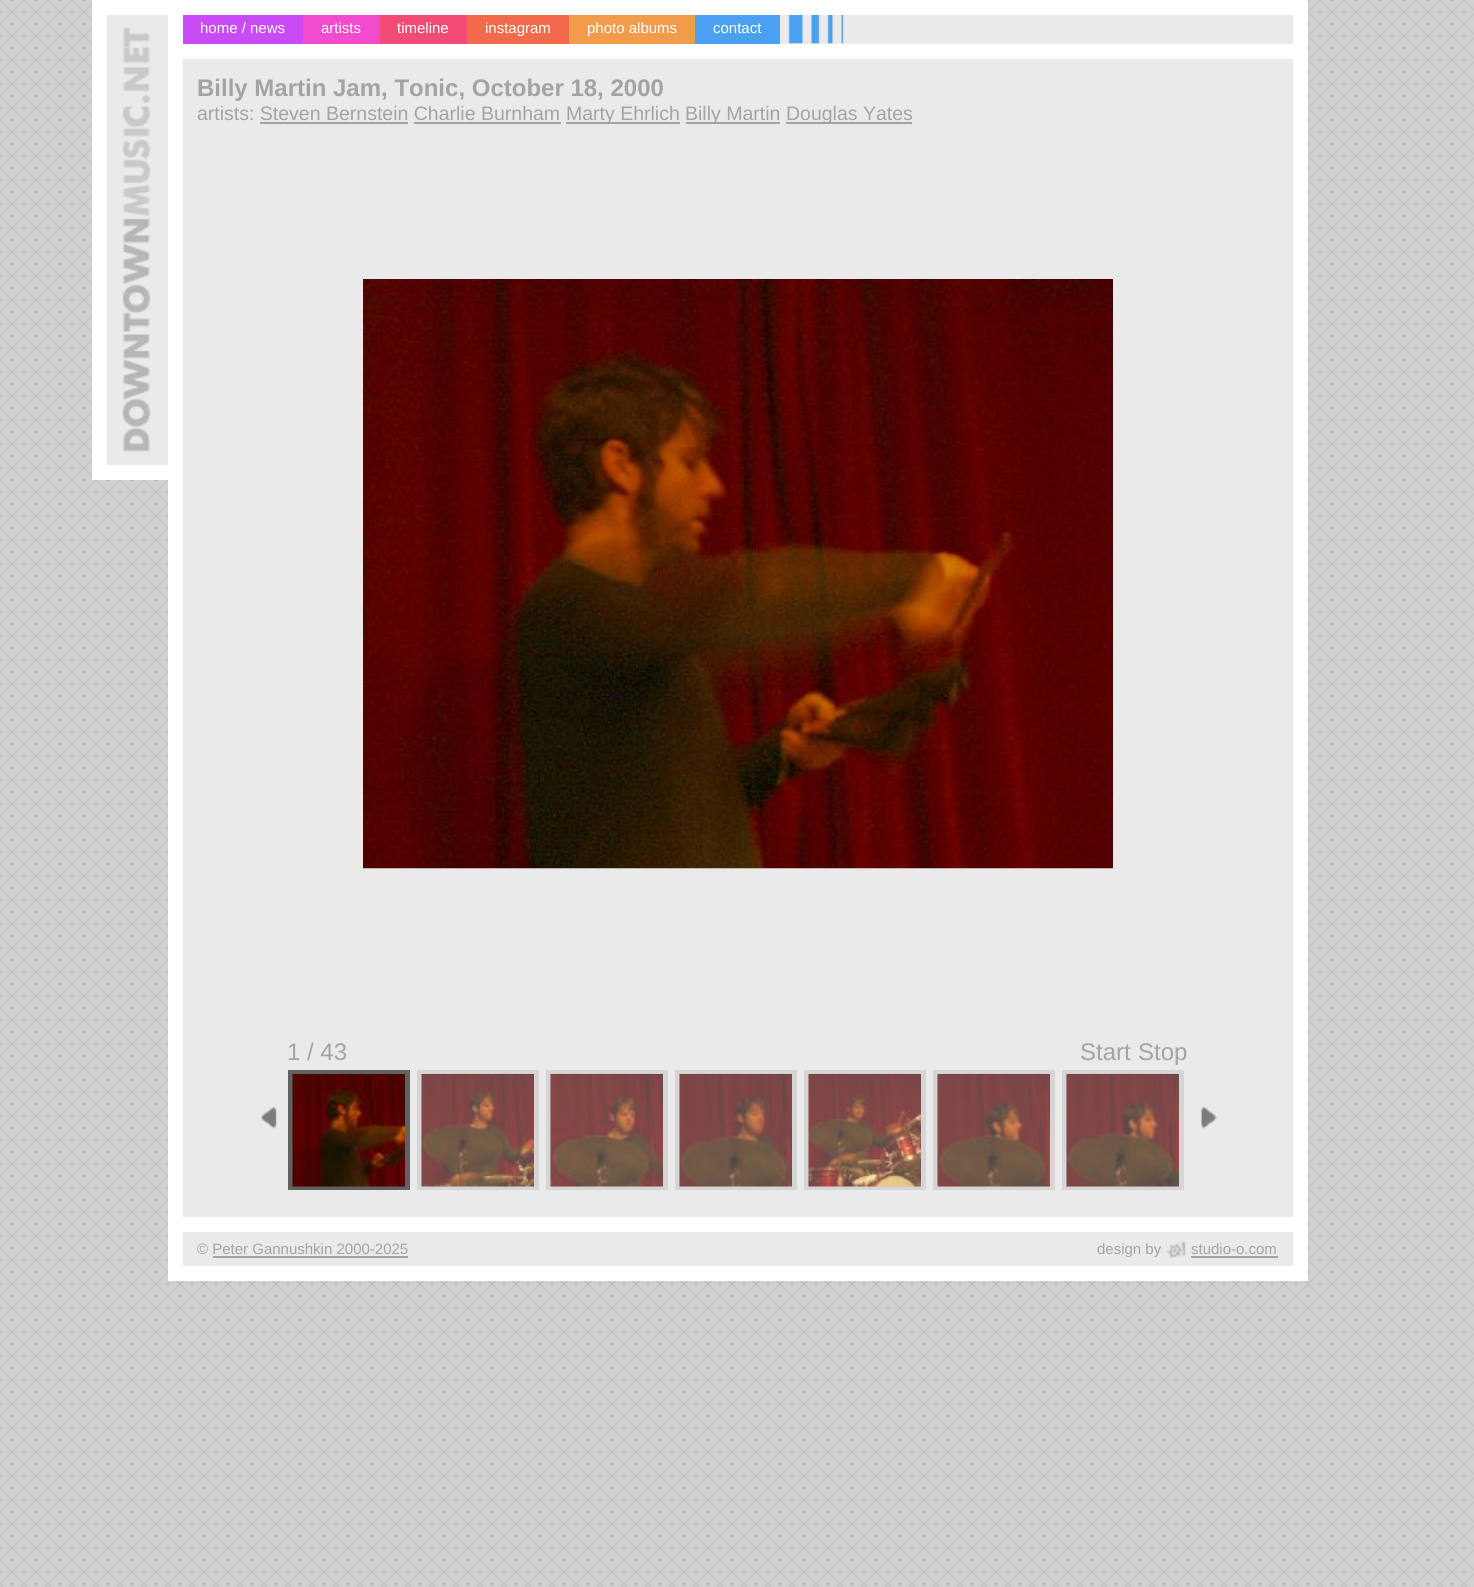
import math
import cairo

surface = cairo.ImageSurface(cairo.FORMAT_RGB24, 1474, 1587)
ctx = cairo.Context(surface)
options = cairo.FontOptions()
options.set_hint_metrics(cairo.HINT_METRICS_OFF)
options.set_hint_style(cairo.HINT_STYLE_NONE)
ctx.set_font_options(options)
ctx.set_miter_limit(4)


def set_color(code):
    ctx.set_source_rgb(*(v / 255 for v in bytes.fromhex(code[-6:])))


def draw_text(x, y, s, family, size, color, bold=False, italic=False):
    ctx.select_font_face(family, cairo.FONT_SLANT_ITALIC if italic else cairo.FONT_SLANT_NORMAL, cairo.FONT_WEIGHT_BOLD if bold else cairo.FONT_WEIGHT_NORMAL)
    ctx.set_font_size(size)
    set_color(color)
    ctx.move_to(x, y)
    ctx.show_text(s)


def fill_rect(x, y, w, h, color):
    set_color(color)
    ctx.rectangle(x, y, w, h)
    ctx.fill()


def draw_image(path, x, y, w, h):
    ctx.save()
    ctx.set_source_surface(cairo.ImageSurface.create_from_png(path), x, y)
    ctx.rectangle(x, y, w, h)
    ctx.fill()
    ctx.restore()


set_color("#ffffff")
ctx.paint()
draw_image("assets/img1.png", 0, 0, 1474, 1587)
set_color("#eaeaea")
ctx.rectangle(175.5, 7.5, 1125, 1266)
ctx.fill_preserve()
set_color("#ffffff")
ctx.set_line_width(15)
ctx.stroke()
fill_rect(107, 15, 61, 450, "#eaeaea")
draw_image("assets/img2.png", 122, 27, 29, 425)
fill_rect(107, 0, 61, 15, "#ffffff")
fill_rect(107, 465, 61, 15, "#ffffff")
fill_rect(92, 0, 15, 480, "#ffffff")
fill_rect(183, 44, 1110, 15, "#ffffff")
fill_rect(183, 15, 120, 29, "#c94af7")
draw_text(200, 33, "home / news", "Liberation Sans", 15, "#ffffff")
fill_rect(303, 15, 77, 29, "#f24bcd")
draw_text(321, 33, "artists", "Liberation Sans", 15, "#ffffff")
fill_rect(380, 15, 87, 29, "#f24b77")
draw_text(397, 33, "timeline", "Liberation Sans", 15, "#ffffff")
fill_rect(467, 15, 102, 29, "#f26a4b")
draw_text(485, 33, "instagram", "Liberation Sans", 15, "#ffffff")
fill_rect(569, 15, 126, 29, "#f29c4b")
draw_text(587, 33, "photo albums", "Liberation Sans", 15, "#ffffff")
fill_rect(695, 15, 85, 29, "#4ba0f2")
draw_text(713, 33, "contact", "Liberation Sans", 15, "#ffffff")
draw_image("assets/img3.png", 788, 15, 56, 29)
draw_text(197, 96, "Billy Martin Jam, Tonic, October 18, 2000", "Liberation Sans", 24, "#a4a3a3", bold=True)
draw_text(197, 120, "artists: Steven Bernstein Charlie Burnham", "Liberation Sans", 19.5, "#a4a3a3")
fill_rect(566, 122, 114, 2, "#a4a3a3")
draw_text(566, 120, "Marty Ehrlich", "Liberation Sans", 19.5, "#a4a3a3")
fill_rect(686, 122, 94, 2, "#a4a3a3")
draw_text(685, 120, "Billy Martin", "Liberation Sans", 19.5, "#a4a3a3")
fill_rect(786, 122, 126, 2, "#a4a3a3")
draw_text(786, 120, "Douglas Yates", "Liberation Sans", 19.5, "#a4a3a3")
fill_rect(260, 122, 148, 2, "#a4a3a3")
fill_rect(414, 122, 147, 2, "#a4a3a3")
draw_image("assets/img4.png", 363, 279, 750, 590)
draw_text(287, 1060, "1 / 43", "Liberation Sans", 24, "#a4a3a3")
draw_text(1080, 1060, "Start", "Liberation Sans", 24, "#a4a3a3")
draw_text(1138, 1060, "Stop", "Liberation Sans", 24, "#a4a3a3")
draw_image("assets/img5.png", 260, 1106, 17, 23)
ctx.save()
ctx.rectangle(288, 1070, 900, 120)
ctx.clip()
ctx.rectangle(290.5, 1072.5, 117, 116)
set_color("#616161")
ctx.set_line_width(5)
ctx.stroke()
ctx.restore()
draw_image("assets/img6.png", 292, 1074, 113, 113)
ctx.save()
ctx.rectangle(288, 1070, 900, 120)
ctx.clip()
ctx.rectangle(419.5, 1072.5, 117, 116)
set_color("#d5d5d5")
ctx.set_line_width(5)
ctx.stroke()
ctx.restore()
draw_image("assets/img7.png", 421, 1074, 113, 113)
ctx.save()
ctx.rectangle(288, 1070, 900, 120)
ctx.clip()
ctx.rectangle(548.5, 1072.5, 117, 116)
set_color("#d5d5d5")
ctx.set_line_width(5)
ctx.stroke()
ctx.restore()
draw_image("assets/img8.png", 550, 1074, 113, 113)
ctx.save()
ctx.rectangle(288, 1070, 900, 120)
ctx.clip()
ctx.rectangle(677.5, 1072.5, 117, 116)
set_color("#d5d5d5")
ctx.set_line_width(5)
ctx.stroke()
ctx.restore()
draw_image("assets/img9.png", 679, 1074, 113, 113)
ctx.save()
ctx.rectangle(288, 1070, 900, 120)
ctx.clip()
ctx.rectangle(806.5, 1072.5, 117, 116)
set_color("#d5d5d5")
ctx.set_line_width(5)
ctx.stroke()
ctx.restore()
draw_image("assets/img10.png", 808, 1074, 113, 113)
ctx.save()
ctx.rectangle(288, 1070, 900, 120)
ctx.clip()
ctx.rectangle(935.5, 1072.5, 117, 116)
set_color("#d5d5d5")
ctx.set_line_width(5)
ctx.stroke()
ctx.restore()
draw_image("assets/img11.png", 937, 1074, 113, 113)
ctx.save()
ctx.rectangle(288, 1070, 900, 120)
ctx.clip()
ctx.rectangle(1064.5, 1072.5, 117, 116)
set_color("#d5d5d5")
ctx.set_line_width(5)
ctx.stroke()
ctx.restore()
draw_image("assets/img12.png", 1066, 1074, 113, 113)
draw_image("assets/img13.png", 1201, 1106, 16, 23)
fill_rect(183, 1217, 1110, 15, "#ffffff")
draw_text(197, 1254, "© Peter Gannushkin 2000-2025", "Liberation Sans", 15, "#a4a3a3")
fill_rect(213, 1256, 195, 2, "#a4a3a3")
draw_text(1097, 1254, "design by", "Liberation Sans", 15, "#a4a3a3")
draw_image("assets/img14.png", 1161, 1241, 25, 18)
draw_text(1191, 1254, "studio-o.com", "Liberation Sans", 15, "#a4a3a3")
fill_rect(1191, 1256, 87, 2, "#a4a3a3")
surface.write_to_png("output.png")
